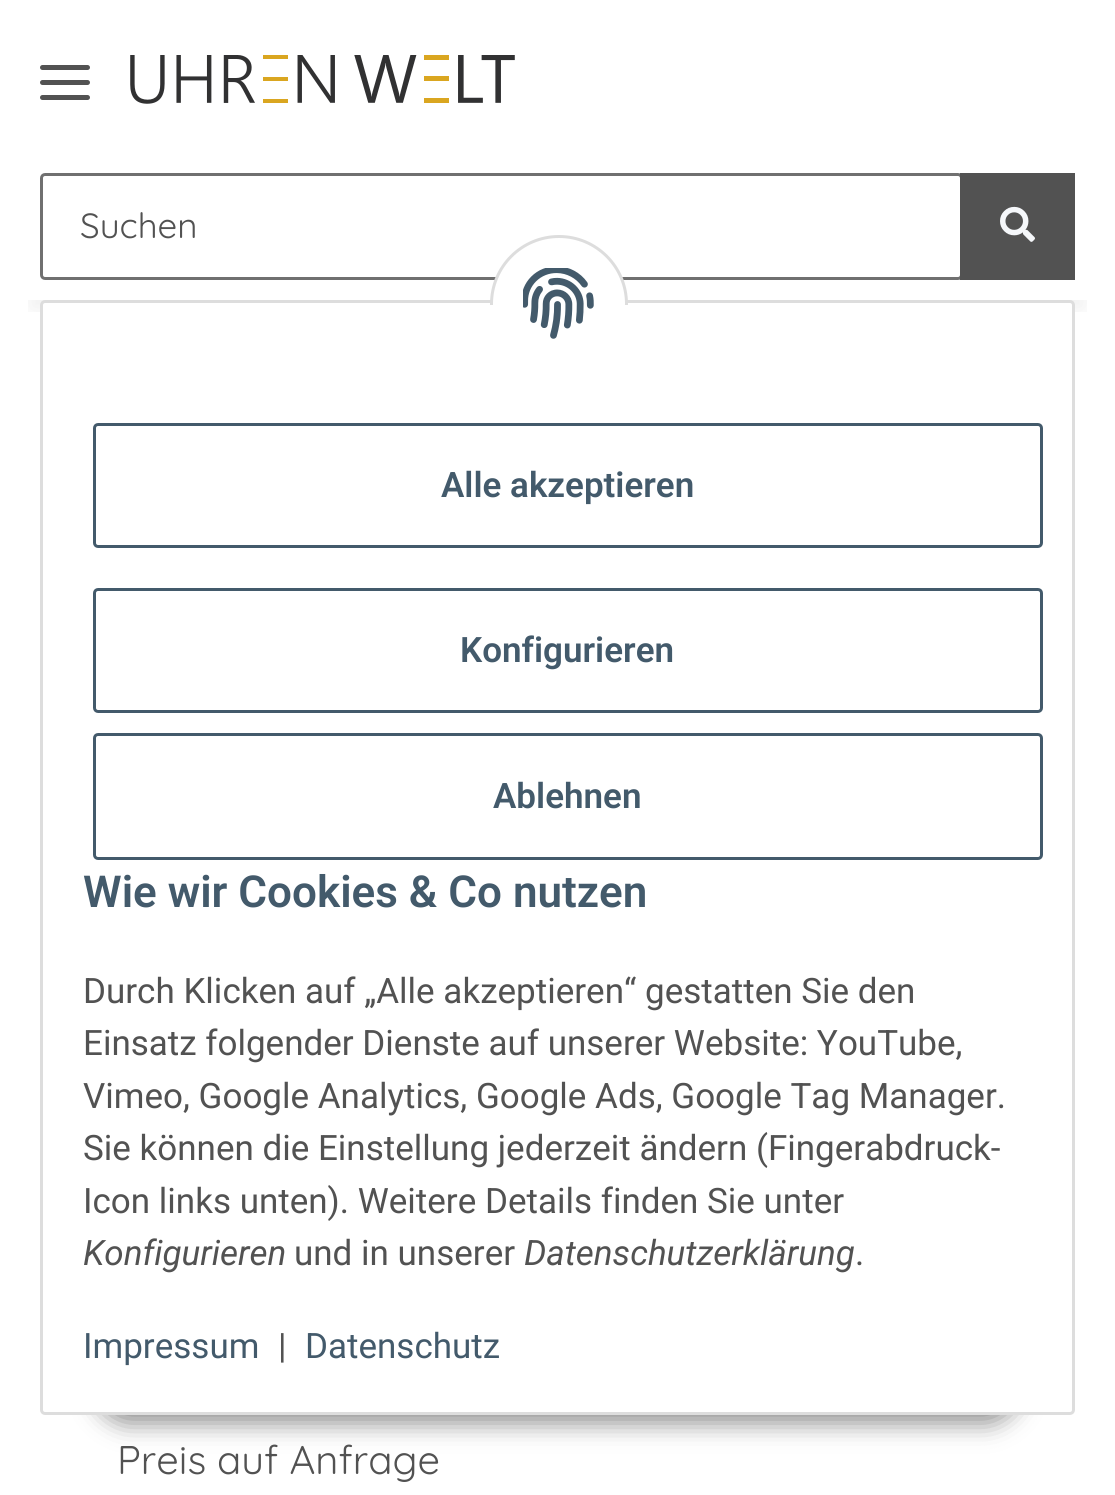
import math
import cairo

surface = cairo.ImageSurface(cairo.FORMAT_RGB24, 1115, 1495)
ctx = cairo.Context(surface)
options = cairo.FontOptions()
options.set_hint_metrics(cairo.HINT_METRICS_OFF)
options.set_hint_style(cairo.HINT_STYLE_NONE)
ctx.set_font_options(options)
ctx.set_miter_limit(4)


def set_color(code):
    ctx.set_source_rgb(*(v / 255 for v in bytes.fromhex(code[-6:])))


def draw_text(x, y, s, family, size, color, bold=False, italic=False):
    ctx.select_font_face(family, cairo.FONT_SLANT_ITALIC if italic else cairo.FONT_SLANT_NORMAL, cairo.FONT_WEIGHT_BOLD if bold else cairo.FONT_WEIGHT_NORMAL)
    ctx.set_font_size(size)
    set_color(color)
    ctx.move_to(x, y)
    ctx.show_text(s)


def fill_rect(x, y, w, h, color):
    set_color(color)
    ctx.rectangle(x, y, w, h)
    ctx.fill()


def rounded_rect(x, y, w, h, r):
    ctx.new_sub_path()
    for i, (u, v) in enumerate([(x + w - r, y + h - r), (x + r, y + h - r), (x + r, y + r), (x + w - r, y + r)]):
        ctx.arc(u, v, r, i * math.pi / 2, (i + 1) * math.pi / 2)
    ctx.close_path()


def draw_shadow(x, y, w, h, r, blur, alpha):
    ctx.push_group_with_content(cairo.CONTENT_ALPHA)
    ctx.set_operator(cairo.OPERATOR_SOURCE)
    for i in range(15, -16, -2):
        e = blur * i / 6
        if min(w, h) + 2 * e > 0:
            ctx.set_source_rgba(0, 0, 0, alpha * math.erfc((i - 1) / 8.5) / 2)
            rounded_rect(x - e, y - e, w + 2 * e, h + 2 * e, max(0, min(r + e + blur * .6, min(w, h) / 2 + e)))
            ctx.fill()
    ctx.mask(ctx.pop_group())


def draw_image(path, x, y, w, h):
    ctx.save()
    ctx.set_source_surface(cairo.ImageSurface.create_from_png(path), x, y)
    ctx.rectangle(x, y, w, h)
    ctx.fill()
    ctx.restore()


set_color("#ffffff")
ctx.paint()
ctx.save()
ctx.rectangle(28, 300, 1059, 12)
ctx.clip()
set_color("#000000")
draw_shadow(30, 70, 1055, 240, 0, 11, 0.06)
ctx.restore()
set_color("#525252")
rounded_rect(40, 80, 50, 5, 2.5)
ctx.fill()
rounded_rect(40, 65, 50, 5, 2.5)
ctx.fill()
rounded_rect(40, 95, 50, 5, 2.5)
ctx.fill()
draw_image("assets/img1.png", 130, 55, 385, 49)
rounded_rect(41.5, 174.5, 920, 104, 3.5)
set_color("#707070")
ctx.set_line_width(3)
ctx.stroke()
draw_text(80, 238, "Suchen", "Quicksand", 35, "#525252")
fill_rect(960, 173, 115, 107, "#525252")
draw_image("assets/img2.png", 1000, 206, 35, 36)
set_color("#000000")
draw_shadow(95, 1343, 925, 80, 40, 12.5, 0.45)
set_color("#ffffff")
rounded_rect(41.5, 301.5, 1032, 1112, 3.5)
ctx.fill_preserve()
set_color("#dddddd")
ctx.stroke()
set_color("#ffffff")
ctx.arc(559, 304, 67.5, 0, 2 * math.pi)
ctx.fill_preserve()
set_color("#dddddd")
ctx.stroke()
fill_rect(490, 305, 138, 68, "#ffffff")
draw_image("assets/img3.png", 523, 268, 71, 71)
rounded_rect(94.5, 424.5, 947, 122, 3.5)
set_color("#435a6b")
ctx.stroke()
draw_text(441, 497, "Alle akzeptieren", "Roboto SemiBold", 35, "#435a6b")
rounded_rect(94.5, 589.5, 947, 122, 3.5)
ctx.stroke()
draw_text(460, 662, "Konfigurieren", "Roboto SemiBold", 35, "#435a6b")
rounded_rect(94.5, 734.5, 947, 124, 3.5)
ctx.stroke()
draw_text(493, 808, "Ablehnen", "Roboto SemiBold", 35, "#435a6b")
draw_text(83, 907, "Wie wir Cookies & Co nutzen", "Roboto SemiBold", 44, "#435a6b")
draw_text(83, 1003, "Durch Klicken auf „Alle akzeptieren“ gestatten Sie den", "Roboto", 35, "#525252")
draw_text(83, 1055, "Einsatz folgender Dienste auf unserer Website: YouTube,", "Roboto", 35, "#525252")
draw_text(83, 1108, "Vimeo, Google Analytics, Google Ads, Google Tag Manager.", "Roboto", 35, "#525252")
draw_text(83, 1160, "Sie können die Einstellung jederzeit ändern (Fingerabdruck-", "Roboto", 35, "#525252")
draw_text(83, 1213, "Icon links unten). Weitere Details finden Sie unter", "Roboto", 35, "#525252")
draw_text(83, 1265, "Konfigurieren", "Roboto", 35, "#525252", italic=True)
draw_text(294, 1265, "und in unserer", "Roboto", 35, "#525252")
draw_text(524, 1265, "Datenschutzerklärung", "Roboto", 35, "#525252", italic=True)
draw_text(855, 1265, ".", "Roboto", 35, "#525252")
draw_text(83, 1358, "Impressum", "Roboto", 35, "#435a6b")
draw_text(278, 1358, "|", "Roboto", 35, "#525252")
draw_text(305, 1358, "Datenschutz", "Roboto", 35, "#435a6b")
draw_text(117, 1474, "Preis auf Anfrage", "Quicksand", 40, "#525252")
surface.write_to_png("output.png")
